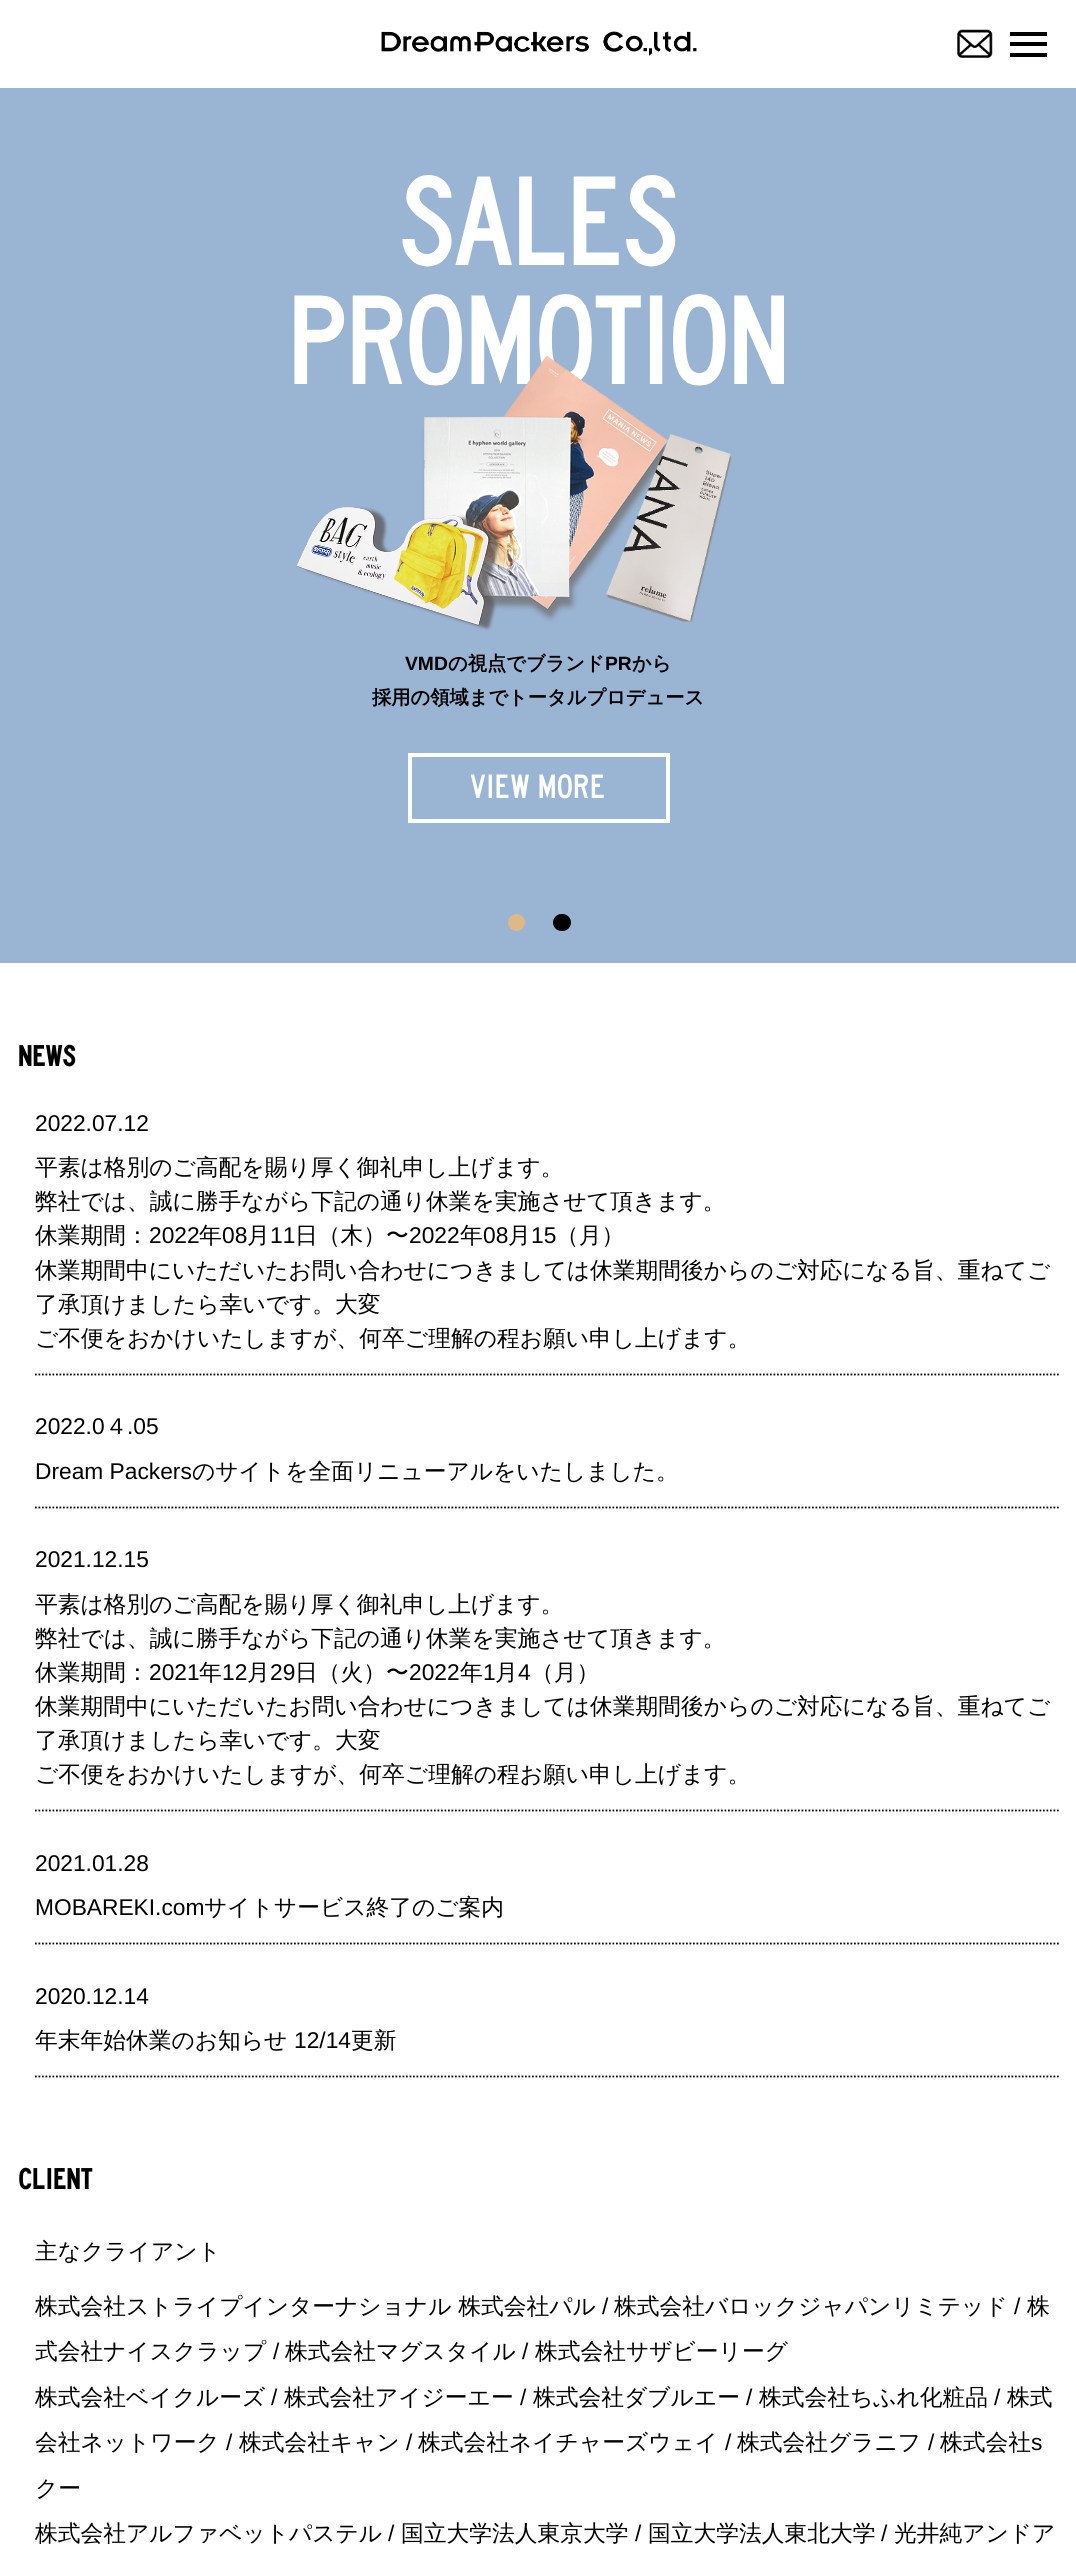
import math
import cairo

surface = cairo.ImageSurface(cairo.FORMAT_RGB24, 1076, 2552)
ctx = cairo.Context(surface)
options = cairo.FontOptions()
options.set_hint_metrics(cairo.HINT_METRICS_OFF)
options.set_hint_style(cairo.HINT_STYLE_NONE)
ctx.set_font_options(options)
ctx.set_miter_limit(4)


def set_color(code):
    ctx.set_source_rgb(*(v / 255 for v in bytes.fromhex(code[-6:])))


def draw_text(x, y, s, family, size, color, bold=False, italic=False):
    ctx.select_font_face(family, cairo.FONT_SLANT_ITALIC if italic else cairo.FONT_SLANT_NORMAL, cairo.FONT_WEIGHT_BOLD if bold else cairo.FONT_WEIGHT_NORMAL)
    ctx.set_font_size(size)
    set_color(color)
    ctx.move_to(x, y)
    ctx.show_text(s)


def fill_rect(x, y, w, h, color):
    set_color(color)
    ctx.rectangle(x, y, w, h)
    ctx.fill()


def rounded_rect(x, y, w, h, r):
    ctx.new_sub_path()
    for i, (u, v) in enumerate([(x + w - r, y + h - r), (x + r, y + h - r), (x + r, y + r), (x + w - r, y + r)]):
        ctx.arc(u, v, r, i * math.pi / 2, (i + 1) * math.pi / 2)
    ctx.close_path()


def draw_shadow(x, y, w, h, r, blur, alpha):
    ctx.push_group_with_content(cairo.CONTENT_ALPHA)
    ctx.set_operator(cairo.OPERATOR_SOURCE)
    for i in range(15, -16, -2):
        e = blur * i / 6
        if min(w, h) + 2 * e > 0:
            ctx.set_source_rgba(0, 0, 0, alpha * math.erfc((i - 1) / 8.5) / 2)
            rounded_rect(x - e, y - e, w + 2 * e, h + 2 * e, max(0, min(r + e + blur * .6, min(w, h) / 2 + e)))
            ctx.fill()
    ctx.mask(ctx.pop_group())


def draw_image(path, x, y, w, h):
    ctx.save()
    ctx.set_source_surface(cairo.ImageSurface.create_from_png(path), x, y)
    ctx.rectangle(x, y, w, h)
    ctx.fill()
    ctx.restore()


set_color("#ffffff")
ctx.paint()
ctx.save()
ctx.set_fill_rule(cairo.FILL_RULE_EVEN_ODD)
ctx.new_path()
ctx.move_to(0, 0)
ctx.line_to(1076, 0)
ctx.line_to(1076, 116)
ctx.line_to(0, 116)
ctx.close_path()
ctx.move_to(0, 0)
ctx.line_to(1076, 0)
ctx.line_to(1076, 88)
ctx.line_to(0, 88)
ctx.close_path()
ctx.clip()
set_color("#666666")
draw_shadow(0, 0, 1076, 88, 0, 9, 1)
ctx.restore()
draw_image("assets/img1.png", 381, 31, 316, 25)
draw_image("assets/img2.png", 957, 29, 36, 29)
fill_rect(1010, 42, 37, 4, "#000000")
fill_rect(1010, 32, 37, 4, "#000000")
fill_rect(1010, 53, 37, 4, "#000000")
fill_rect(0, 88, 1076, 875, "#9ab4d3")
draw_image("assets/img3.png", 294, 175, 490, 456)
draw_text(405, 670, "VMD", "Liberation Sans", 19.25, "#000000", bold=True)
draw_text(448, 670, "の視点でブランド", "WenQuanYi Zen Hei", 19.25, "#000000", bold=True)
draw_text(605, 670, "PR", "Liberation Sans", 19.25, "#000000", bold=True)
draw_text(632, 670, "から", "WenQuanYi Zen Hei", 19.25, "#000000", bold=True)
draw_text(372, 704, "採用の領域までトータルプロデュース", "WenQuanYi Zen Hei", 19.25, "#000000", bold=True)
ctx.rectangle(410, 755, 258, 66)
set_color("#ffffff")
ctx.set_line_width(4)
ctx.stroke()
draw_text(470, 798, "VIEW MORE", "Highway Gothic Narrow", 35, "#ffffff")
set_color("#deb887")
ctx.new_path()
ctx.arc(516.5, 922.5, 8.5, 0, 2 * math.pi)
ctx.fill()
set_color("#000000")
rounded_rect(553, 914, 18, 17, 8.5)
ctx.fill()
draw_text(18, 1066, "NEWS", "Highway Gothic Narrow", 30, "#000000", bold=True)
ctx.new_path()
ctx.move_to(35, 1374.5)
ctx.line_to(1059, 1374.5)
ctx.set_line_width(1.8)
ctx.set_dash([1.75, 1.75])
ctx.stroke()
draw_text(35, 1131, "2022.07.12", "Liberation Sans", 22.75, "#000000")
draw_text(35, 1175, "平素は格別のご高配を賜り厚く御礼申し上げます。", "WenQuanYi Zen Hei Medium", 22.75, "#000000")
draw_text(35, 1209, "弊社では、誠に勝手ながら下記の通り休業を実施させて頂きます。", "WenQuanYi Zen Hei Medium", 22.75, "#000000")
draw_text(35, 1243, "休業期間：", "WenQuanYi Zen Hei Medium", 22.75, "#000000")
draw_text(149, 1243, "2022", "Liberation Sans", 22.75, "#000000")
draw_text(199, 1243, "年", "WenQuanYi Zen Hei Medium", 22.75, "#000000")
draw_text(222, 1243, "08", "Liberation Sans", 22.75, "#000000")
draw_text(247, 1243, "月", "WenQuanYi Zen Hei Medium", 22.75, "#000000")
draw_text(270, 1243, "11", "Liberation Sans", 22.75, "#000000")
draw_text(295, 1243, "日（木）〜", "WenQuanYi Zen Hei Medium", 22.75, "#000000")
draw_text(409, 1243, "2022", "Liberation Sans", 22.75, "#000000")
draw_text(460, 1243, "年", "WenQuanYi Zen Hei Medium", 22.75, "#000000")
draw_text(483, 1243, "08", "Liberation Sans", 22.75, "#000000")
draw_text(508, 1243, "月", "WenQuanYi Zen Hei Medium", 22.75, "#000000")
draw_text(531, 1243, "15", "Liberation Sans", 22.75, "#000000")
draw_text(556, 1243, "（月）", "WenQuanYi Zen Hei Medium", 22.75, "#000000")
draw_text(35, 1278, "休業期間中にいただいたお問い合わせにつきましては休業期間後からのご対応になる旨、重ねてご", "WenQuanYi Zen Hei Medium", 22.75, "#000000")
draw_text(35, 1312, "了承頂けましたら幸いです。大変", "WenQuanYi Zen Hei Medium", 22.75, "#000000")
draw_text(35, 1346, "ご不便をおかけいたしますが、何卒ご理解の程お願い申し上げます。", "WenQuanYi Zen Hei Medium", 22.75, "#000000")
ctx.new_path()
ctx.move_to(35, 1507.5)
ctx.line_to(1059, 1507.5)
ctx.stroke()
draw_text(35, 1434, "2022.0", "Liberation Sans", 22.75, "#000000")
draw_text(105, 1434, "４", "WenQuanYi Zen Hei Medium", 22.75, "#000000")
draw_text(127, 1434, ".05", "Liberation Sans", 22.75, "#000000")
draw_text(35, 1479, "Dream Packers", "Liberation Sans", 22.75, "#000000")
draw_text(192, 1479, "のサイトを全面リニューアルをいたしました。", "WenQuanYi Zen Hei Medium", 22.75, "#000000")
ctx.new_path()
ctx.move_to(35, 1810.5)
ctx.line_to(1059, 1810.5)
ctx.stroke()
draw_text(35, 1567, "2021.12.15", "Liberation Sans", 22.75, "#000000")
draw_text(35, 1612, "平素は格別のご高配を賜り厚く御礼申し上げます。", "WenQuanYi Zen Hei Medium", 22.75, "#000000")
draw_text(35, 1646, "弊社では、誠に勝手ながら下記の通り休業を実施させて頂きます。", "WenQuanYi Zen Hei Medium", 22.75, "#000000")
draw_text(35, 1680, "休業期間：", "WenQuanYi Zen Hei Medium", 22.75, "#000000")
draw_text(149, 1680, "2021", "Liberation Sans", 22.75, "#000000")
draw_text(199, 1680, "年", "WenQuanYi Zen Hei Medium", 22.75, "#000000")
draw_text(222, 1680, "12", "Liberation Sans", 22.75, "#000000")
draw_text(247, 1680, "月", "WenQuanYi Zen Hei Medium", 22.75, "#000000")
draw_text(270, 1680, "29", "Liberation Sans", 22.75, "#000000")
draw_text(295, 1680, "日（火）〜", "WenQuanYi Zen Hei Medium", 22.75, "#000000")
draw_text(409, 1680, "2022", "Liberation Sans", 22.75, "#000000")
draw_text(460, 1680, "年", "WenQuanYi Zen Hei Medium", 22.75, "#000000")
draw_text(483, 1680, "1", "Liberation Sans", 22.75, "#000000")
draw_text(495, 1680, "月", "WenQuanYi Zen Hei Medium", 22.75, "#000000")
draw_text(518, 1680, "4", "Liberation Sans", 22.75, "#000000")
draw_text(531, 1680, "（月）", "WenQuanYi Zen Hei Medium", 22.75, "#000000")
draw_text(35, 1714, "休業期間中にいただいたお問い合わせにつきましては休業期間後からのご対応になる旨、重ねてご", "WenQuanYi Zen Hei Medium", 22.75, "#000000")
draw_text(35, 1748, "了承頂けましたら幸いです。大変", "WenQuanYi Zen Hei Medium", 22.75, "#000000")
draw_text(35, 1782, "ご不便をおかけいたしますが、何卒ご理解の程お願い申し上げます。", "WenQuanYi Zen Hei Medium", 22.75, "#000000")
ctx.new_path()
ctx.move_to(35, 1943.5)
ctx.line_to(1059, 1943.5)
ctx.stroke()
draw_text(35, 1871, "2021.01.28", "Liberation Sans", 22.75, "#000000")
draw_text(35, 1915, "MOBAREKI.com", "Liberation Sans", 22.75, "#000000")
draw_text(204, 1915, "サイトサービス終了のご案内", "WenQuanYi Zen Hei Medium", 22.75, "#000000")
ctx.new_path()
ctx.move_to(35, 2076.5)
ctx.line_to(1059, 2076.5)
ctx.stroke()
draw_text(35, 2004, "2020.12.14", "Liberation Sans", 22.75, "#000000")
draw_text(35, 2048, "年末年始休業のお知らせ", "WenQuanYi Zen Hei Medium", 22.75, "#000000")
draw_text(294, 2048, "12/14", "Liberation Sans", 22.75, "#000000")
draw_text(351, 2048, "更新", "WenQuanYi Zen Hei Medium", 22.75, "#000000")
draw_text(18, 2189, "CLIENT", "Highway Gothic Narrow", 30, "#000000", bold=True)
draw_text(35, 2259, "主なクライアント", "WenQuanYi Zen Hei Medium", 22.75, "#000000")
draw_text(35, 2314, "株式会社ストライプインターナショナル 株式会社パル", "WenQuanYi Zen Hei Medium", 22.75, "#000000")
draw_text(602, 2314, "/", "Liberation Sans", 22.75, "#000000")
draw_text(614, 2314, "株式会社バロックジャパンリミテッド", "WenQuanYi Zen Hei Medium", 22.75, "#000000")
draw_text(1014, 2314, "/", "Liberation Sans", 22.75, "#000000")
draw_text(1027, 2314, "株", "WenQuanYi Zen Hei Medium", 22.75, "#000000")
draw_text(35, 2359, "式会社ナイスクラップ", "WenQuanYi Zen Hei Medium", 22.75, "#000000")
draw_text(273, 2359, "/", "Liberation Sans", 22.75, "#000000")
draw_text(285, 2359, "株式会社マグスタイル", "WenQuanYi Zen Hei Medium", 22.75, "#000000")
draw_text(522, 2359, "/", "Liberation Sans", 22.75, "#000000")
draw_text(535, 2359, "株式会社サザビーリーグ", "WenQuanYi Zen Hei Medium", 22.75, "#000000")
draw_text(35, 2405, "株式会社ベイクルーズ", "WenQuanYi Zen Hei Medium", 22.75, "#000000")
draw_text(271, 2405, "/", "Liberation Sans", 22.75, "#000000")
draw_text(284, 2405, "株式会社アイジーエー", "WenQuanYi Zen Hei Medium", 22.75, "#000000")
draw_text(520, 2405, "/", "Liberation Sans", 22.75, "#000000")
draw_text(533, 2405, "株式会社ダブルエー", "WenQuanYi Zen Hei Medium", 22.75, "#000000")
draw_text(746, 2405, "/", "Liberation Sans", 22.75, "#000000")
draw_text(759, 2405, "株式会社ちふれ化粧品", "WenQuanYi Zen Hei Medium", 22.75, "#000000")
draw_text(994, 2405, "/", "Liberation Sans", 22.75, "#000000")
draw_text(1007, 2405, "株式", "WenQuanYi Zen Hei Medium", 22.75, "#000000")
draw_text(35, 2450, "会社ネットワーク", "WenQuanYi Zen Hei Medium", 22.75, "#000000")
draw_text(226, 2450, "/", "Liberation Sans", 22.75, "#000000")
draw_text(239, 2450, "株式会社キャン", "WenQuanYi Zen Hei Medium", 22.75, "#000000")
draw_text(406, 2450, "/", "Liberation Sans", 22.75, "#000000")
draw_text(418, 2450, "株式会社ネイチャーズウェイ", "WenQuanYi Zen Hei Medium", 22.75, "#000000")
draw_text(725, 2450, "/", "Liberation Sans", 22.75, "#000000")
draw_text(737, 2450, "株式会社グラニフ", "WenQuanYi Zen Hei Medium", 22.75, "#000000")
draw_text(928, 2450, "/", "Liberation Sans", 22.75, "#000000")
draw_text(940, 2450, "株式会社", "WenQuanYi Zen Hei Medium", 22.75, "#000000")
draw_text(1031, 2450, "s", "Liberation Sans", 22.75, "#000000")
draw_text(35, 2496, "クー", "WenQuanYi Zen Hei Medium", 22.75, "#000000")
draw_text(35, 2541, "株式会社アルファベットパステル", "WenQuanYi Zen Hei Medium", 22.75, "#000000")
draw_text(388, 2541, "/", "Liberation Sans", 22.75, "#000000")
draw_text(401, 2541, "国立大学法人東京大学", "WenQuanYi Zen Hei Medium", 22.75, "#000000")
draw_text(635, 2541, "/", "Liberation Sans", 22.75, "#000000")
draw_text(648, 2541, "国立大学法人東北大学", "WenQuanYi Zen Hei Medium", 22.75, "#000000")
draw_text(881, 2541, "/", "Liberation Sans", 22.75, "#000000")
draw_text(894, 2541, "光井純アンドア", "WenQuanYi Zen Hei Medium", 22.75, "#000000")
surface.write_to_png("output.png")
